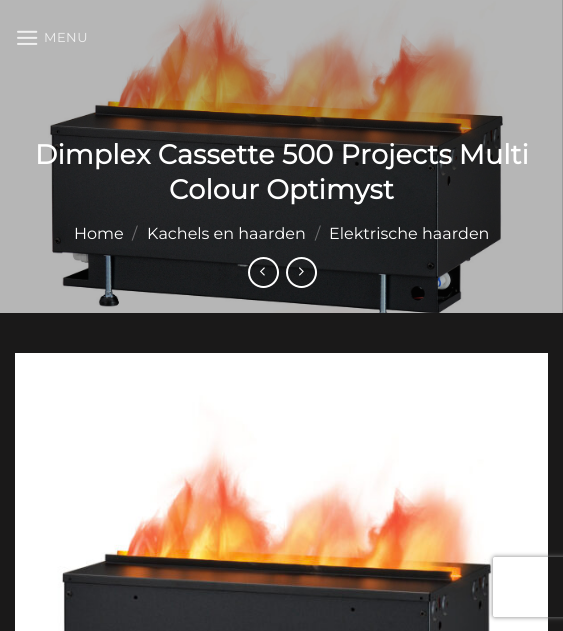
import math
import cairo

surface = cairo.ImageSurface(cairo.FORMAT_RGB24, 563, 631)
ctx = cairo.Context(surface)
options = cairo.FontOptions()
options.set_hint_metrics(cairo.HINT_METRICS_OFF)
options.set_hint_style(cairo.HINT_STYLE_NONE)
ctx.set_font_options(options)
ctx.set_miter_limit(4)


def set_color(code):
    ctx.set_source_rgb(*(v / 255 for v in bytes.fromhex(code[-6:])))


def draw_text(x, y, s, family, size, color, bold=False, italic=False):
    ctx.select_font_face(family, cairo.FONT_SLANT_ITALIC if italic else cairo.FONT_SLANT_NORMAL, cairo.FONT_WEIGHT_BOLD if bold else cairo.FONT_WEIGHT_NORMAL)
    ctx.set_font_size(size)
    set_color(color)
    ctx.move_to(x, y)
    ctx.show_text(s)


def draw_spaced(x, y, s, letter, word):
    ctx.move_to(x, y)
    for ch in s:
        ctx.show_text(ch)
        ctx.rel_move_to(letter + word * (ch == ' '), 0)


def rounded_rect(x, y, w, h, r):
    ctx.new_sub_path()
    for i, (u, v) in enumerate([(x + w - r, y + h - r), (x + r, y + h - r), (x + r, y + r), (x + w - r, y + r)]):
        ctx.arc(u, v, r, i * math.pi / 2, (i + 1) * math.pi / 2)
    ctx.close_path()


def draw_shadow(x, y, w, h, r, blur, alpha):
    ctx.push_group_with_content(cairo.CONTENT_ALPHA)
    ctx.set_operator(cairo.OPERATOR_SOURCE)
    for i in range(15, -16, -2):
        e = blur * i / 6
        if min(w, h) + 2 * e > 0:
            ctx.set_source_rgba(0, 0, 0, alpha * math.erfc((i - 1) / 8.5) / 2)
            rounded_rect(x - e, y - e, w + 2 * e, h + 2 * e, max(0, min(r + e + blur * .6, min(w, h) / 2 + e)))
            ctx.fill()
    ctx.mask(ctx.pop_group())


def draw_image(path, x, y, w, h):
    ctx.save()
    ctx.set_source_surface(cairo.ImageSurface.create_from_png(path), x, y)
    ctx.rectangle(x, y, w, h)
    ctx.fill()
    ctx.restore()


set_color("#1a1919")
ctx.paint()
draw_image("assets/img2.png", 0, 0, 563, 313)
draw_image("assets/img1.png", 17, 30, 21, 15)
ctx.select_font_face("Montserrat Thin")
ctx.set_font_size(13)
set_color("#f0f0f0")
draw_spaced(44, 42, "MENU", 0.5, 0)
draw_text(35, 164, "Dimplex Cassette 500 Projects Multi", "Montserrat", 27.25, "#ffffff", bold=True)
draw_text(169, 199, "Colour Optimyst", "Montserrat", 27.25, "#ffffff", bold=True)
draw_text(74, 239, "Home", "Montserrat Thin", 16, "#ffffff")
draw_text(132, 239, "/", "Montserrat Thin", 16, "#6f6f71")
draw_text(147, 239, "Kachels en haarden", "Montserrat Thin", 16, "#ffffff")
draw_text(315, 239, "/", "Montserrat Thin", 16, "#6f6f71")
draw_text(329, 239, "Elektrische haarden", "Montserrat Thin", 16, "#ffffff")
ctx.new_path()
ctx.arc(263.5, 272.5, 14.5, 0, 2 * math.pi)
ctx.stroke()
draw_image("assets/img3.png", 260, 267, 5, 9)
ctx.arc(301.5, 272.5, 14.5, 0, 2 * math.pi)
ctx.stroke()
draw_image("assets/img4.png", 299, 267, 5, 9)
draw_image("assets/img5.png", 15, 353, 533, 278)
ctx.save()
ctx.set_fill_rule(cairo.FILL_RULE_EVEN_ODD)
ctx.new_path()
ctx.move_to(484, 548)
ctx.line_to(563, 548)
ctx.line_to(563, 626)
ctx.line_to(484, 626)
ctx.close_path()
ctx.move_to(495, 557)
ctx.line_to(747, 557)
ctx.curve_to(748, 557, 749, 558, 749, 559)
ctx.line_to(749, 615)
ctx.curve_to(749, 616, 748, 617, 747, 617)
ctx.line_to(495, 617)
ctx.curve_to(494, 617, 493, 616, 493, 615)
ctx.line_to(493, 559)
ctx.curve_to(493, 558, 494, 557, 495, 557)
ctx.close_path()
ctx.clip()
set_color("#808080")
draw_shadow(493, 557, 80, 60, 2, 2.5, 1)
ctx.restore()
surface.write_to_png("output.png")
